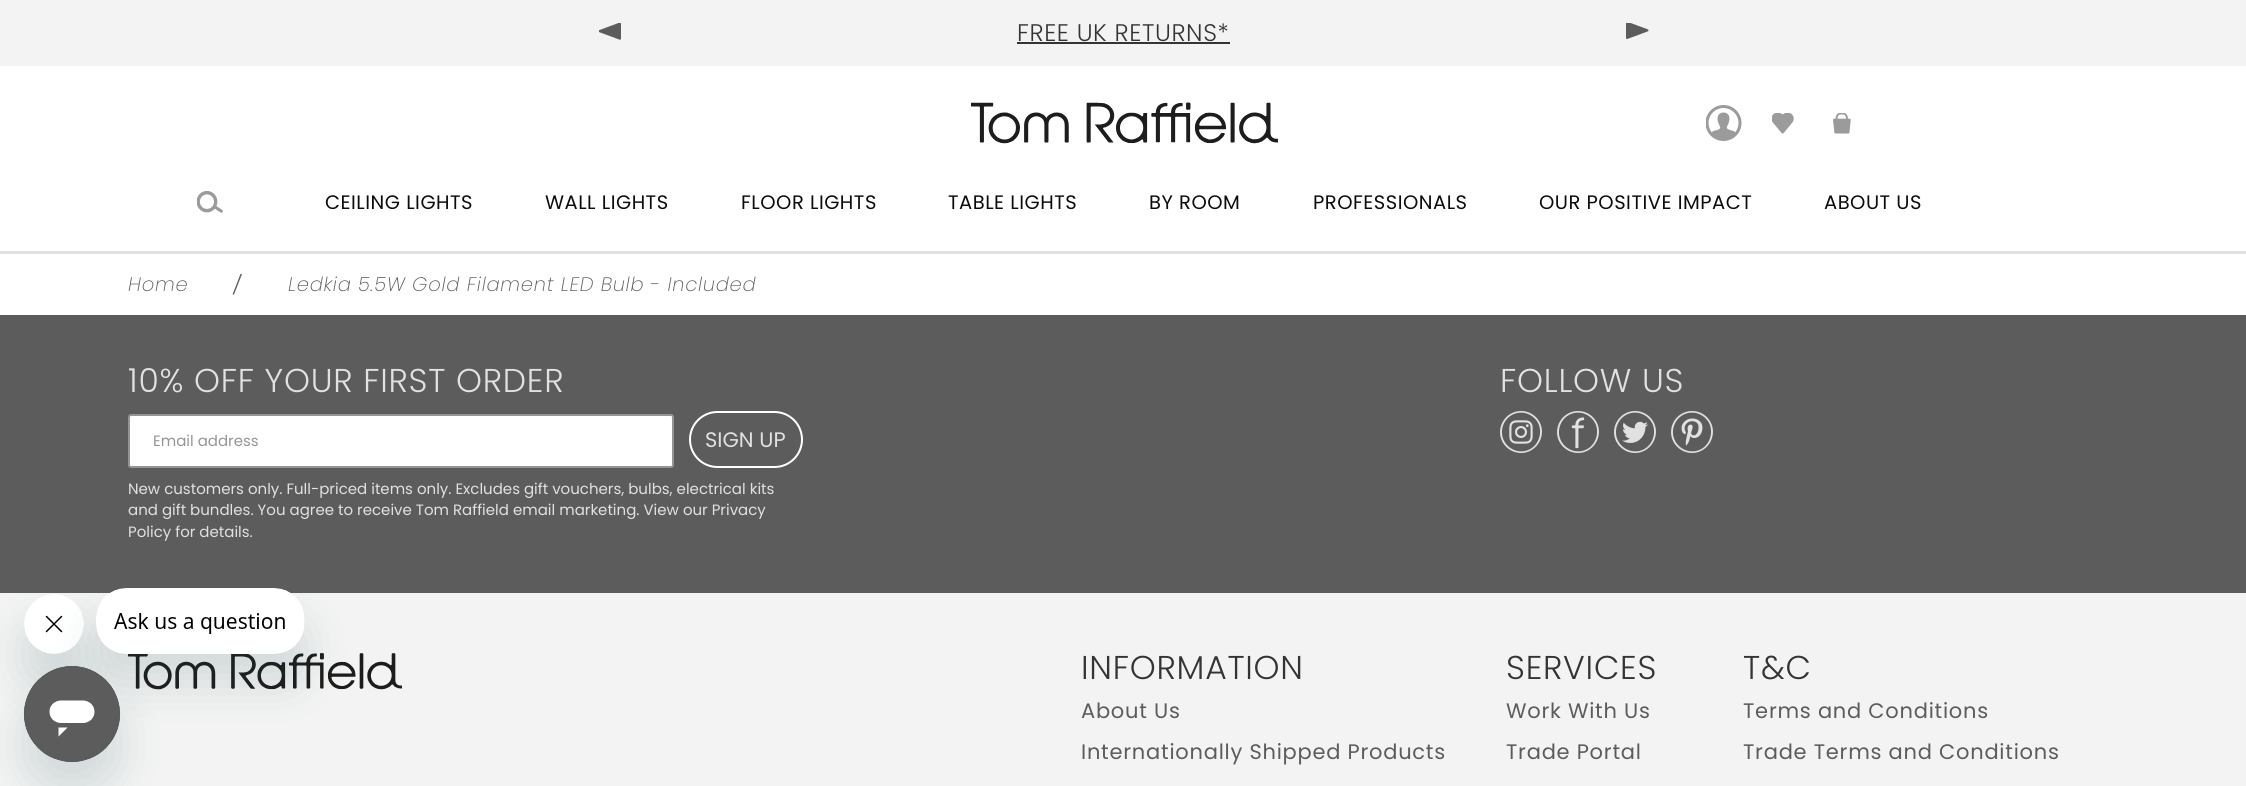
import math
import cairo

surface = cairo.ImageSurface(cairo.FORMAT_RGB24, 2246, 786)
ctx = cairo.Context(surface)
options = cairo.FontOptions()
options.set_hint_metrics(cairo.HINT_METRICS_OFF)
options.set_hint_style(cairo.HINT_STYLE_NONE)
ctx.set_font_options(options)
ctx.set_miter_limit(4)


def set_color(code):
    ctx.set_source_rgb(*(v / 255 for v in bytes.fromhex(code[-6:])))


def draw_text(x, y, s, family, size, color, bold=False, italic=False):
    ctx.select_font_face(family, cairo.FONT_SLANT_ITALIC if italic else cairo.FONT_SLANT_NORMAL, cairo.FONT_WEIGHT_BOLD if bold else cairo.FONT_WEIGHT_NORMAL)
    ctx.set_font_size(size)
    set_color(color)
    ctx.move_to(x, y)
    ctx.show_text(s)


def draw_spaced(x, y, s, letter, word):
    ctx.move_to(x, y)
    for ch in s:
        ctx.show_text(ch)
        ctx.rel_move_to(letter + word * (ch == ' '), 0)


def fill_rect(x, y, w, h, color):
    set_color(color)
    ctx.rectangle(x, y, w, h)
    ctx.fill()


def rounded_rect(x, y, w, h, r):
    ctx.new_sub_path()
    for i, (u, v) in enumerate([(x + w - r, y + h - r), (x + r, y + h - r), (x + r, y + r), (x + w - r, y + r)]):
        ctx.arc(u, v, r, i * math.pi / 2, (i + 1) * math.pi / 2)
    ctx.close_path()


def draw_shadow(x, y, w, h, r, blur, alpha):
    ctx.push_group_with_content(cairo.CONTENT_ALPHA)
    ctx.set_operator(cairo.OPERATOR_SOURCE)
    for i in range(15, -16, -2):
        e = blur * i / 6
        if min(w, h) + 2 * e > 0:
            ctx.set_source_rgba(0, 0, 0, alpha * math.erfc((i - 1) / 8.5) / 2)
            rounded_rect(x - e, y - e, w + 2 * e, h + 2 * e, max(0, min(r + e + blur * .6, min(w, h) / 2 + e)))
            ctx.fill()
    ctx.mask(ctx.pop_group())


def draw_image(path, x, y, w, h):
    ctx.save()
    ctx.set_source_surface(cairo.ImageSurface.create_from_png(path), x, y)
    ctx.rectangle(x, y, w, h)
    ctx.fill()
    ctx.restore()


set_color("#ffffff")
ctx.paint()
fill_rect(0, 0, 2246, 66, "#f3f3f3")
draw_image("assets/img1.png", 599, 23, 22, 17)
ctx.select_font_face("Poppins Light")
ctx.set_font_size(24)
set_color("#343434")
draw_spaced(1017, 41, "FREE UK RETURNS*", 0.6, 0)
fill_rect(1017, 42, 213, 2, "#343434")
draw_image("assets/img2.png", 1626, 23, 23, 16)
draw_image("assets/img3.png", 971, 102, 307, 42)
draw_image("assets/img4.png", 1706, 105, 36, 36)
draw_image("assets/img5.png", 1772, 113, 22, 21)
draw_image("assets/img6.png", 1833, 113, 18, 21)
draw_image("assets/img7.png", 197, 191, 26, 22)
ctx.select_font_face("Poppins")
ctx.set_font_size(19.5)
set_color("#0c0c0c")
draw_spaced(325, 209, "CEILING LIGHTS", 0.5, 0)
draw_spaced(545, 209, "WALL LIGHTS", 0.5, 0)
draw_spaced(741, 209, "FLOOR LIGHTS", 0.5, 0)
draw_spaced(948, 209, "TABLE LIGHTS", 0.5, 0)
draw_spaced(1149, 209, "BY ROOM", 0.5, 0)
draw_spaced(1313, 209, "PROFESSIONALS", 0.5, 0)
draw_spaced(1539, 209, "OUR POSITIVE IMPACT", 0.5, 0)
draw_spaced(1824, 209, "ABOUT US", 0.5, 0)
fill_rect(0, 251, 2246, 3, "#e1e1e1")
ctx.select_font_face("Poppins ExtraLight", cairo.FONT_SLANT_ITALIC)
set_color("#5c5c5c")
draw_spaced(128, 291, "Home", 0.75, 0)
set_color("#5d5c5c")
ctx.set_fill_rule(cairo.FILL_RULE_EVEN_ODD)
ctx.new_path()
ctx.move_to(240.5, 274)
ctx.line_to(232.5, 294.5)
ctx.line_to(234, 294.5)
ctx.line_to(242, 274)
ctx.fill()
set_color("#5c5c5c")
draw_spaced(288, 291, "Ledkia 5.5W Gold Filament LED Bulb - Included", 0.75, 0)
fill_rect(0, 315, 2246, 278, "#5d5c5c")
ctx.select_font_face("Poppins Light")
ctx.set_font_size(33)
set_color("#e1e1e1")
draw_spaced(128, 392, "10% OFF YOUR FIRST ORDER", 0.75, 0)
set_color("#ffffff")
rounded_rect(129, 415, 544, 52, 2)
ctx.fill_preserve()
set_color("#949596")
ctx.stroke()
draw_text(153, 446, "Email address", "Poppins", 15, "#949596")
rounded_rect(690, 412, 112, 55, 27.5)
set_color("#ffffff")
ctx.stroke()
draw_text(705, 447, "SIGN UP", "Poppins", 21, "#e1e1e1")
draw_text(128, 494, "New customers only. Full-priced items only. Excludes gift vouchers, bulbs, electrical kits", "Poppins", 15, "#e1e1e1")
draw_text(128, 515, "and gift bundles. You agree to receive Tom Raffield email marketing. View our Privacy", "Poppins", 15, "#e1e1e1")
draw_text(128, 537, "Policy for details.", "Poppins", 15, "#e1e1e1")
ctx.select_font_face("Poppins Light")
ctx.set_font_size(33)
draw_spaced(1500, 392, "FOLLOW US", 0.75, 0)
draw_image("assets/img8.png", 1500, 411, 42, 42)
draw_image("assets/img9.png", 1557, 411, 42, 42)
draw_image("assets/img10.png", 1614, 411, 42, 42)
draw_image("assets/img11.png", 1671, 411, 42, 42)
fill_rect(0, 593, 2246, 193, "#f3f3f3")
draw_image("assets/img12.png", 128, 653, 274, 37)
set_color("#343434")
draw_spaced(1081, 679, "INFORMATION", 0.75, 0)
ctx.select_font_face("Poppins")
ctx.set_font_size(21)
set_color("#5c5c5c")
draw_spaced(1081, 718, "About Us", 0.75, 0)
draw_spaced(1081, 759, "Internationally Shipped Products", 0.75, 0)
ctx.select_font_face("Poppins Light")
ctx.set_font_size(33)
set_color("#343434")
draw_spaced(1506, 679, "SERVICES", 0.75, 0)
ctx.select_font_face("Poppins")
ctx.set_font_size(21)
set_color("#5c5c5c")
draw_spaced(1506, 718, "Work With Us", 0.75, 0)
draw_spaced(1506, 759, "Trade Portal", 0.75, 0)
ctx.select_font_face("Poppins Light")
ctx.set_font_size(33)
set_color("#343434")
draw_spaced(1743, 679, "T&C", 0.75, 0)
ctx.select_font_face("Poppins")
ctx.set_font_size(21)
set_color("#5c5c5c")
draw_spaced(1743, 718, "Terms and Conditions", 0.75, 0)
draw_spaced(1743, 759, "Trade Terms and Conditions", 0.75, 0)
set_color("#17494d")
draw_shadow(24, 624, 60, 60, 30, 22.5, 0.15)
draw_image("assets/img14.png", 24, 594, 60, 60)
draw_shadow(96, 618, 209, 66, 30, 22.5, 0.15)
draw_image("assets/img13.png", 96, 588, 209, 66)
draw_shadow(24, 696, 96, 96, 48, 22.5, 0.15)
draw_image("assets/img15.png", 24, 666, 96, 96)
surface.write_to_png("output.png")
